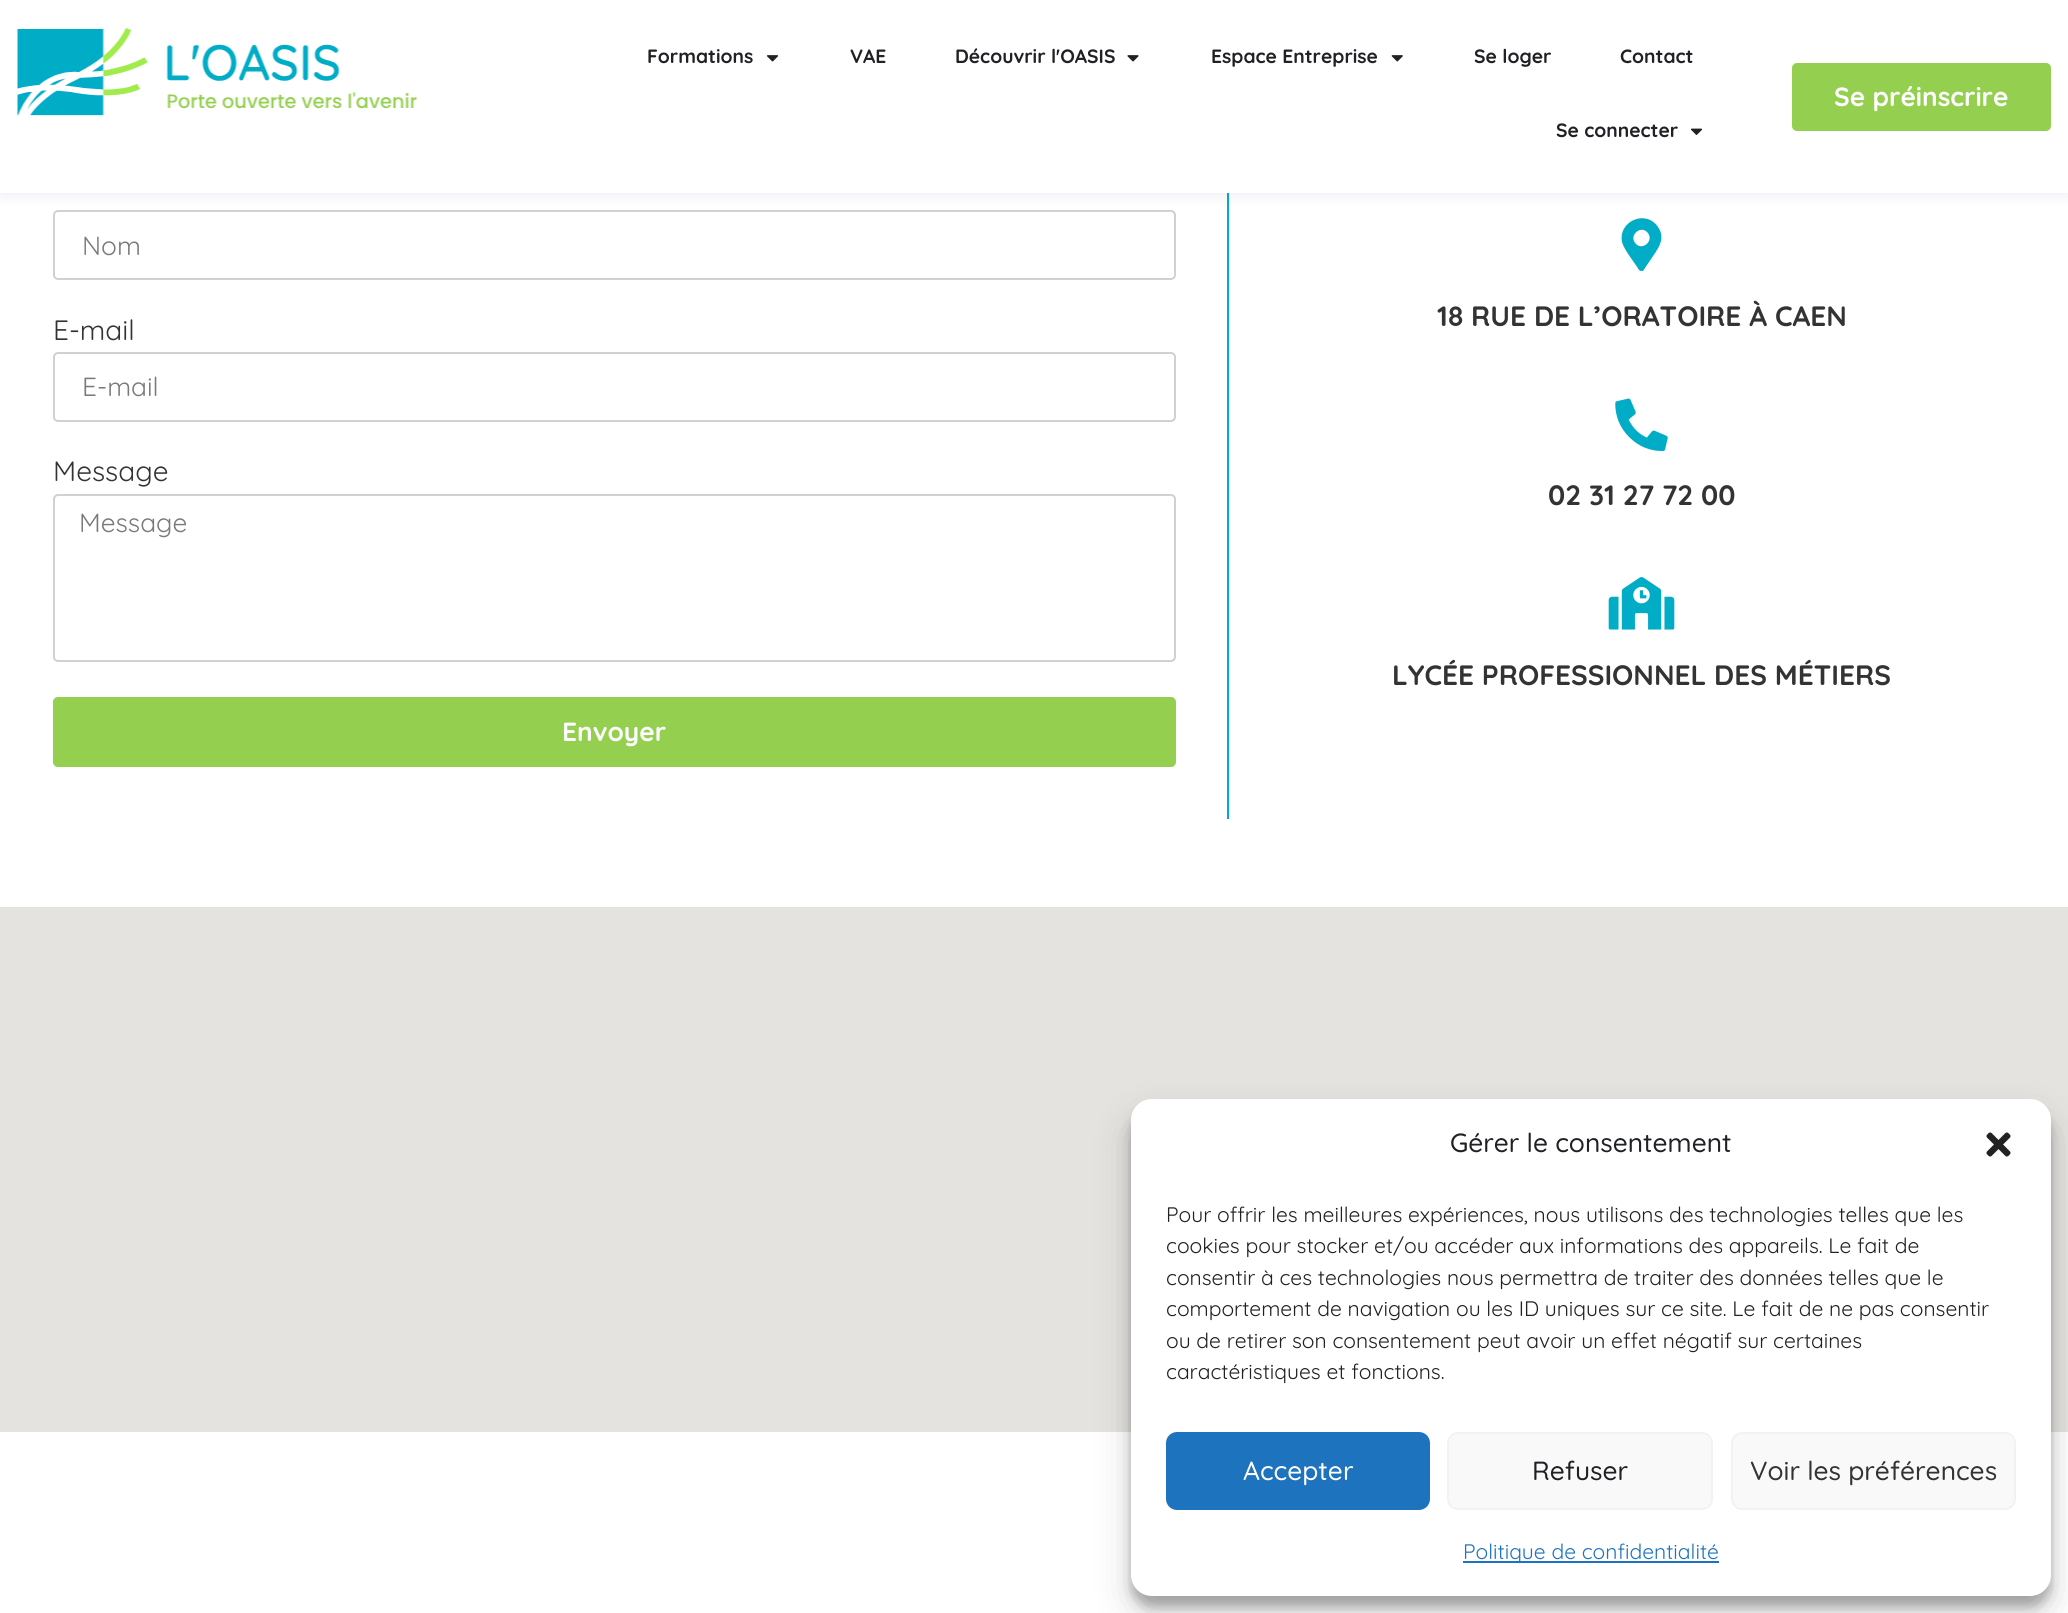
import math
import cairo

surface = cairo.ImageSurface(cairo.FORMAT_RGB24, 2068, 1613)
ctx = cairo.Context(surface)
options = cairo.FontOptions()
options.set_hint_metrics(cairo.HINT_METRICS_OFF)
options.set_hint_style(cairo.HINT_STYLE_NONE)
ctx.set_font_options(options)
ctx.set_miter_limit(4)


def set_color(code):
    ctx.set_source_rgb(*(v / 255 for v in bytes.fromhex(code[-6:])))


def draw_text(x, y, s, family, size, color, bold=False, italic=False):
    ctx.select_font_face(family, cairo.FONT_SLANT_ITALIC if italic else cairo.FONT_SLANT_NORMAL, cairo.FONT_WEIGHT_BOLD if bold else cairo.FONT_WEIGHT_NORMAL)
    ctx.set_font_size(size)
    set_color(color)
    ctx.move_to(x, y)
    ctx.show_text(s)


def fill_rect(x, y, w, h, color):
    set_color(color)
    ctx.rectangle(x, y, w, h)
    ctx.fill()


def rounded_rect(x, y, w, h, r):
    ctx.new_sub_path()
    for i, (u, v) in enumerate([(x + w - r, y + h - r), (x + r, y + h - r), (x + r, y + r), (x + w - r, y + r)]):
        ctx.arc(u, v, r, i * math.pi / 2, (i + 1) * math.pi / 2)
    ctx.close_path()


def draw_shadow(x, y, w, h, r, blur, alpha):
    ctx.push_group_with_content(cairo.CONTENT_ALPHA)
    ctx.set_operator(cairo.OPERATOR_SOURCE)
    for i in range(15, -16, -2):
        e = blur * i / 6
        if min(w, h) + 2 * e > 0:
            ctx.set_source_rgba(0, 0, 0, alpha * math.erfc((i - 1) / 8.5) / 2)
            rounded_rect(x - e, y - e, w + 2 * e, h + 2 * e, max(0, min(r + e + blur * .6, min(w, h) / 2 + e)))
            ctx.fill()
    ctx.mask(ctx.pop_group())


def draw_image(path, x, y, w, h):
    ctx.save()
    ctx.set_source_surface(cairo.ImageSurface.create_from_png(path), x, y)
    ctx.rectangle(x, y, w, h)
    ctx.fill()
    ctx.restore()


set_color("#ffffff")
ctx.paint()
rounded_rect(54, 211, 1121, 68, 4)
set_color("#d1d1d1")
ctx.stroke()
fill_rect(1227, 193, 2, 626, "#00acc6")
set_color("#100768")
draw_shadow(0, 4, 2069, 192, 0, 7, 0.07)
fill_rect(0, 0, 2068, 193, "#ffffff")
draw_image("assets/img1.png", 17, 28, 400, 88)
draw_text(647, 63, "Formations", "Quicksand", 19.25, "#1f2124", bold=True)
draw_image("assets/img2.png", 767, 55, 12, 7)
draw_text(850, 63, "VAE", "Quicksand", 19.25, "#1f2124", bold=True)
draw_text(955, 63, "Découvrir l'OASIS", "Quicksand", 19.25, "#1f2124", bold=True)
draw_image("assets/img3.png", 1127, 55, 12, 7)
draw_text(1211, 63, "Espace Entreprise", "Quicksand", 19.25, "#1f2124", bold=True)
draw_image("assets/img4.png", 1391, 55, 12, 7)
draw_text(1474, 63, "Se loger", "Quicksand", 19.25, "#1f2124", bold=True)
draw_text(1620, 63, "Contact", "Quicksand", 19.25, "#1f2124", bold=True)
draw_text(1556, 137, "Se connecter", "Quicksand", 19.25, "#1f2124", bold=True)
draw_image("assets/img5.png", 1690, 128, 13, 7)
set_color("#94cf50")
rounded_rect(1792, 63, 259, 68, 5)
ctx.fill()
draw_text(1834, 106, "Se préinscrire", "Quicksand", 26.25, "#ffffff", bold=True)
draw_text(82, 255, "Nom", "Quicksand", 26.25, "#797a7c")
draw_text(53, 340, "E-mail", "Quicksand", 28, "#333333")
rounded_rect(54, 353, 1121, 68, 4)
set_color("#d1d1d1")
ctx.stroke()
draw_text(82, 396, "E-mail", "Quicksand", 26.25, "#797a7c")
draw_text(53, 481, "Message", "Quicksand", 28, "#333333")
rounded_rect(54, 495, 1121, 166, 4)
set_color("#d1d1d1")
ctx.stroke()
draw_text(79, 532, "Message", "Quicksand", 26.25, "#797a7c")
set_color("#94cf50")
rounded_rect(53, 697, 1123, 70, 5)
ctx.fill()
draw_text(562, 741, "Envoyer", "Quicksand", 26.25, "#ffffff", bold=True)
set_color("#00acc6")
ctx.new_path()
ctx.move_to(1639, 270)
ctx.curve_to(1635, 263, 1624, 250, 1622, 242)
ctx.curve_to(1618, 221, 1646, 209, 1658, 227)
ctx.curve_to(1667, 240, 1656, 251, 1649, 262)
ctx.line_to(1643, 271)
ctx.curve_to(1642, 271, 1640, 271, 1639, 270)
ctx.close_path()
ctx.move_to(1636, 244)
ctx.curve_to(1643, 251, 1655, 240, 1647, 232)
ctx.curve_to(1640, 225, 1628, 236, 1636, 244)
ctx.close_path()
ctx.fill()
draw_text(1437, 326, "18 RUE DE L’ORATOIRE À CAEN", "Quicksand", 28, "#333333", bold=True)
draw_image("assets/img6.png", 1615, 398, 53, 54)
draw_text(1548, 505, "02 31 27 72 00", "Quicksand", 28, "#333333", bold=True)
draw_image("assets/img7.png", 1608, 577, 67, 53)
draw_text(1392, 685, "LYCÉE PROFESSIONNEL DES MÉTIERS", "Quicksand", 28, "#333333", bold=True)
fill_rect(0, 907, 2068, 525, "#e5e3df")
set_color("#000000")
draw_shadow(1131, 1110, 920, 497, 21, 5, 0.23)
draw_shadow(1131, 1117, 920, 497, 21, 17.5, 0.19)
set_color("#ffffff")
rounded_rect(1131, 1099, 920, 497, 21)
ctx.fill()
draw_text(1450, 1152, "Gérer le consentement", "Quicksand Medium", 26.25, "#1f2124")
draw_image("assets/img8.png", 1986, 1132, 25, 25)
draw_text(1166, 1222, "Pour offrir les meilleures expériences, nous utilisons des technologies telles que les", "Quicksand", 21, "#1f2124")
draw_text(1166, 1253, "cookies pour stocker et/ou accéder aux informations des appareils. Le fait de", "Quicksand", 21, "#1f2124")
draw_text(1166, 1285, "consentir à ces technologies nous permettra de traiter des données telles que le", "Quicksand", 21, "#1f2124")
draw_text(1166, 1316, "comportement de navigation ou les ID uniques sur ce site. Le fait de ne pas consentir", "Quicksand", 21, "#1f2124")
draw_text(1166, 1348, "ou de retirer son consentement peut avoir un effet négatif sur certaines", "Quicksand", 21, "#1f2124")
draw_text(1166, 1379, "caractéristiques et fonctions.", "Quicksand", 21, "#1f2124")
set_color("#1e73be")
rounded_rect(1167, 1433, 262, 76, 10)
ctx.fill_preserve()
ctx.stroke()
draw_text(1243, 1480, "Accepter", "Quicksand Medium", 26.25, "#ffffff")
set_color("#f9f9f9")
rounded_rect(1448, 1433, 264, 76, 10)
ctx.fill_preserve()
set_color("#f2f2f2")
ctx.stroke()
draw_text(1532, 1480, "Refuser", "Quicksand Medium", 26.25, "#1f2124")
set_color("#f9f9f9")
rounded_rect(1732, 1433, 283, 76, 10)
ctx.fill_preserve()
set_color("#f2f2f2")
ctx.stroke()
draw_text(1750, 1480, "Voir les préférences", "Quicksand Medium", 26.25, "#333333")
fill_rect(1463, 1561, 256, 2, "#1e73be")
draw_text(1463, 1559, "Politique de confidentialité", "Quicksand", 21, "#1e73be")
surface.write_to_png("output.png")
